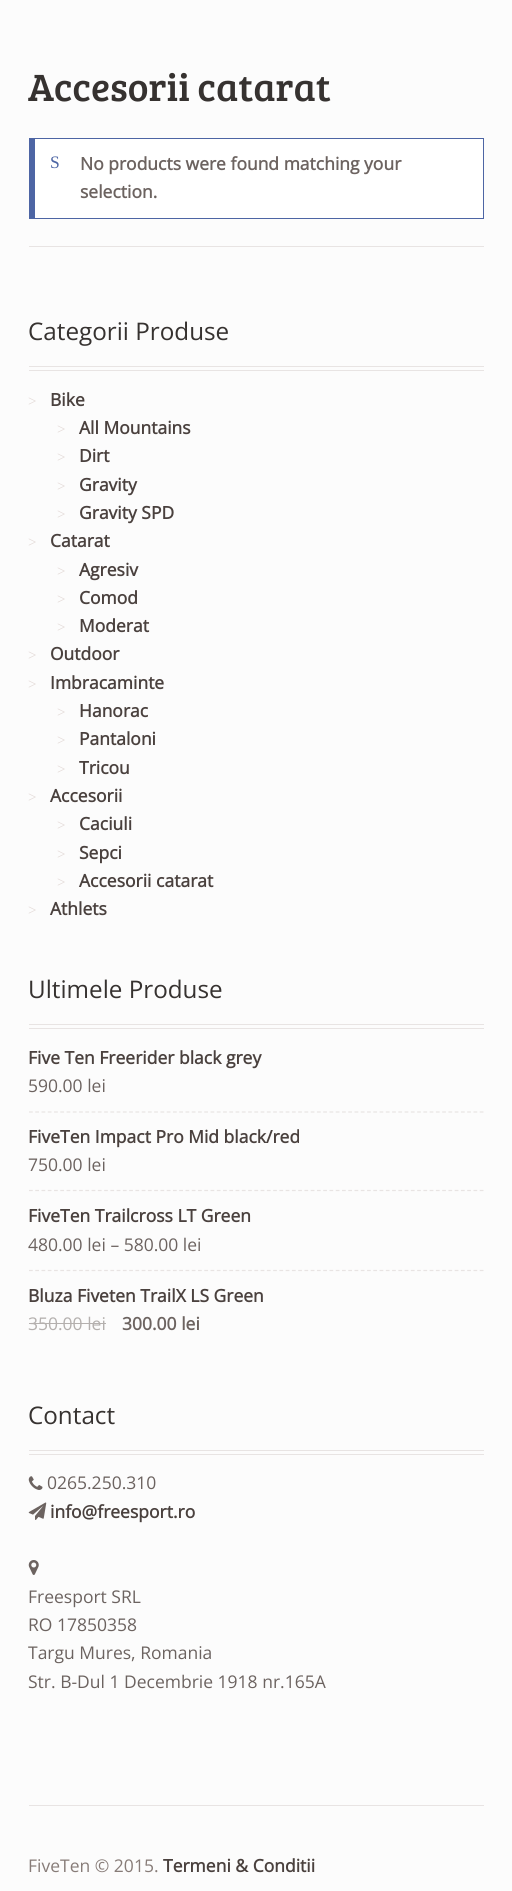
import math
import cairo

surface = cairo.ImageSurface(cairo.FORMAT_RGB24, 512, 1891)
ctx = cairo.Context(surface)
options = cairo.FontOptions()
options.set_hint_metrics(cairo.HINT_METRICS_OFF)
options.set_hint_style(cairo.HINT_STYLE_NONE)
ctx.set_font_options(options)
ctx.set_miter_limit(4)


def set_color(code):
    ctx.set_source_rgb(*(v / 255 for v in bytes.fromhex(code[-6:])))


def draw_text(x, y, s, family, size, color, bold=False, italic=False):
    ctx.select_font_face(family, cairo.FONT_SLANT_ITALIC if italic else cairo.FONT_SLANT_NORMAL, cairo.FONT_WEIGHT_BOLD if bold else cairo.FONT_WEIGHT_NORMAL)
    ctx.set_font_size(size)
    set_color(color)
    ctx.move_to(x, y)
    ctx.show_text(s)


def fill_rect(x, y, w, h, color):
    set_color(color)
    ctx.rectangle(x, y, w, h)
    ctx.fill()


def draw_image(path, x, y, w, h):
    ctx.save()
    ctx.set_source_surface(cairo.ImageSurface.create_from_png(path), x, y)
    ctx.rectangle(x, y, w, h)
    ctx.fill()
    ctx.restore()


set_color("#fcfcfc")
ctx.paint()
draw_text(28, 101, "Accesorii catarat", "Bree Serif", 39.25, "#363230")
fill_rect(35, 139, 448, 79, "#ffffff")
fill_rect(29, 138, 455, 1, "#4d65a4")
fill_rect(483, 138, 1, 81, "#4d65a4")
fill_rect(29, 218, 455, 1, "#4d65a4")
fill_rect(29, 138, 6, 81, "#4d65a4")
draw_text(50, 168, "S", "Liberation Serif", 17.5, "#4d65a4")
draw_text(80, 170, "No products were found matching your", "Open Sans", 17.5, "#6c6360", bold=True)
draw_text(80, 198, "selection.", "Open Sans", 17.5, "#6c6360", bold=True)
fill_rect(29, 246, 455, 1, "#e8e4e3")
fill_rect(29, 366, 455, 1, "#e8e4e3")
fill_rect(29, 370, 455, 1, "#e8e4e3")
draw_text(28, 340, "Categorii Produse", "Open Sans", 24.25, "#363230")
draw_text(28, 406, ">", "Liberation Serif", 15, "#e3dad7")
draw_text(50, 406, "Bike", "Open Sans", 17.5, "#4a413e", bold=True)
draw_text(57, 434, ">", "Liberation Serif", 15, "#e3dad7")
draw_text(79, 434, "All Mountains", "Open Sans", 17.5, "#4a413e", bold=True)
draw_text(57, 462, ">", "Liberation Serif", 15, "#e3dad7")
draw_text(79, 462, "Dirt", "Open Sans", 17.5, "#4a413e", bold=True)
draw_text(57, 491, ">", "Liberation Serif", 15, "#e3dad7")
draw_text(79, 491, "Gravity", "Open Sans", 17.5, "#4a413e", bold=True)
draw_text(57, 519, ">", "Liberation Serif", 15, "#e3dad7")
draw_text(79, 519, "Gravity SPD", "Open Sans", 17.5, "#4a413e", bold=True)
draw_text(28, 547, ">", "Liberation Serif", 15, "#e3dad7")
draw_text(50, 547, "Catarat", "Open Sans", 17.5, "#4a413e", bold=True)
draw_text(57, 576, ">", "Liberation Serif", 15, "#e3dad7")
draw_text(79, 576, "Agresiv", "Open Sans", 17.5, "#4a413e", bold=True)
draw_text(57, 604, ">", "Liberation Serif", 15, "#e3dad7")
draw_text(79, 604, "Comod", "Open Sans", 17.5, "#4a413e", bold=True)
draw_text(57, 632, ">", "Liberation Serif", 15, "#e3dad7")
draw_text(79, 632, "Moderat", "Open Sans", 17.5, "#4a413e", bold=True)
draw_text(28, 660, ">", "Liberation Serif", 15, "#e3dad7")
draw_text(50, 660, "Outdoor", "Open Sans", 17.5, "#4a413e", bold=True)
draw_text(28, 689, ">", "Liberation Serif", 15, "#e3dad7")
draw_text(50, 689, "Imbracaminte", "Open Sans", 17.5, "#4a413e", bold=True)
draw_text(57, 717, ">", "Liberation Serif", 15, "#e3dad7")
draw_text(79, 717, "Hanorac", "Open Sans", 17.5, "#4a413e", bold=True)
draw_text(57, 745, ">", "Liberation Serif", 15, "#e3dad7")
draw_text(79, 745, "Pantaloni", "Open Sans", 17.5, "#4a413e", bold=True)
draw_text(57, 774, ">", "Liberation Serif", 15, "#e3dad7")
draw_text(79, 774, "Tricou", "Open Sans", 17.5, "#4a413e", bold=True)
draw_text(28, 802, ">", "Liberation Serif", 15, "#e3dad7")
draw_text(50, 802, "Accesorii", "Open Sans", 17.5, "#4a413e", bold=True)
draw_text(57, 830, ">", "Liberation Serif", 15, "#e3dad7")
draw_text(79, 830, "Caciuli", "Open Sans", 17.5, "#4a413e", bold=True)
draw_text(57, 859, ">", "Liberation Serif", 15, "#e3dad7")
draw_text(79, 859, "Sepci", "Open Sans", 17.5, "#4a413e", bold=True)
draw_text(57, 887, ">", "Liberation Serif", 15, "#e3dad7")
draw_text(79, 887, "Accesorii catarat", "Open Sans", 17.5, "#4a413e", bold=True)
draw_text(28, 915, ">", "Liberation Serif", 15, "#e3dad7")
draw_text(50, 915, "Athlets", "Open Sans", 17.5, "#4a413e", bold=True)
fill_rect(29, 1024, 455, 1, "#e8e4e3")
fill_rect(29, 1028, 455, 1, "#e8e4e3")
draw_text(28, 998, "Ultimele Produse", "Open Sans", 24.25, "#363230")
ctx.new_path()
ctx.move_to(29, 1112)
ctx.line_to(484, 1112)
set_color("#e8e4e3")
ctx.set_line_width(1.2)
ctx.set_dash([3.75, 2.51])
ctx.stroke()
draw_text(28, 1064, "Five Ten Freerider black grey", "Open Sans", 17.5, "#4a413e", bold=True)
draw_text(28, 1092, "590.00 lei", "Open Sans", 17.5, "#6c6360")
ctx.new_path()
ctx.move_to(29, 1190.5)
ctx.line_to(484, 1190.5)
set_color("#e8e4e3")
ctx.stroke()
draw_text(28, 1143, "FiveTen Impact Pro Mid black/red", "Open Sans", 17.5, "#4a413e", bold=True)
draw_text(28, 1171, "750.00 lei", "Open Sans", 17.5, "#6c6360")
ctx.new_path()
ctx.move_to(29, 1270.5)
ctx.line_to(484, 1270.5)
set_color("#e8e4e3")
ctx.stroke()
draw_text(28, 1222, "FiveTen Trailcross LT Green", "Open Sans", 17.5, "#4a413e", bold=True)
draw_text(28, 1251, "480.00 lei – 580.00 lei", "Open Sans", 17.5, "#6c6360")
draw_text(28, 1302, "Bluza Fiveten TrailX LS Green", "Open Sans", 17.5, "#4a413e", bold=True)
draw_text(28, 1330, "350.00 lei", "Open Sans", 17.5, "#b4b0ae")
fill_rect(29, 1323, 77, 1, "#b4b0ae")
draw_text(122, 1330, "300.00 lei", "Open Sans", 17.5, "#6c6360", bold=True)
fill_rect(29, 1450, 455, 1, "#e8e4e3")
fill_rect(29, 1454, 455, 1, "#e8e4e3")
draw_text(28, 1424, "Contact", "Open Sans", 24.25, "#363230")
draw_image("assets/img1.png", 28, 1476, 15, 14)
draw_text(47, 1489, "0265.250.310", "Open Sans", 17.5, "#6c6360")
draw_image("assets/img2.png", 28, 1502, 19, 18)
draw_text(50, 1518, "info@freesport.ro", "Open Sans", 17.5, "#4a413e", bold=True)
draw_image("assets/img3.png", 28, 1560, 11, 15)
draw_text(28, 1603, "Freesport SRL", "Open Sans", 17.5, "#6c6360")
draw_text(28, 1631, "RO 17850358", "Open Sans", 17.5, "#6c6360")
draw_text(28, 1659, "Targu Mures, Romania", "Open Sans", 17.5, "#6c6360")
draw_text(28, 1688, "Str. B-Dul 1 Decembrie 1918 nr.165A", "Open Sans", 17.5, "#6c6360")
fill_rect(29, 1805, 455, 1, "#e8e4e3")
draw_text(28, 1872, "FiveTen © 2015.", "Open Sans", 17.5, "#877c78")
draw_text(163, 1872, "Termeni & Conditii", "Open Sans", 17.5, "#4a413e", bold=True)
surface.write_to_png("output.png")
